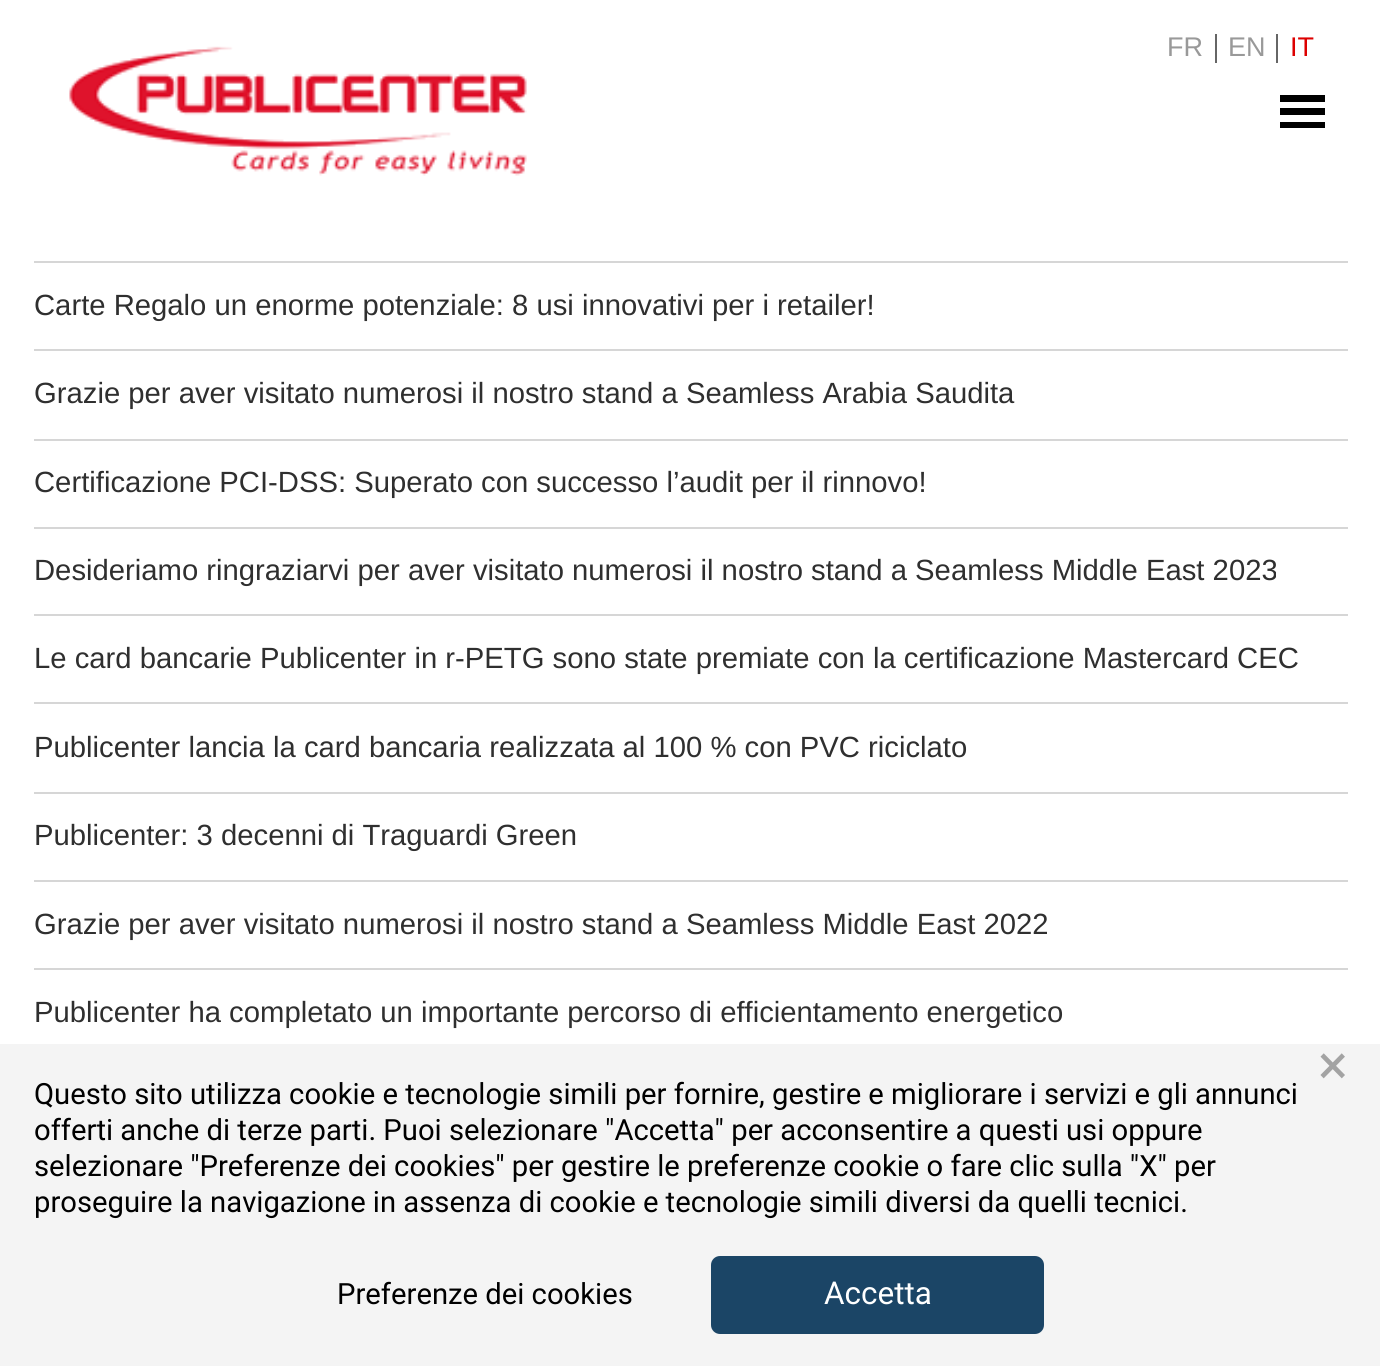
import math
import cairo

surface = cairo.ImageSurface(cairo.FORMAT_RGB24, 1380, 1366)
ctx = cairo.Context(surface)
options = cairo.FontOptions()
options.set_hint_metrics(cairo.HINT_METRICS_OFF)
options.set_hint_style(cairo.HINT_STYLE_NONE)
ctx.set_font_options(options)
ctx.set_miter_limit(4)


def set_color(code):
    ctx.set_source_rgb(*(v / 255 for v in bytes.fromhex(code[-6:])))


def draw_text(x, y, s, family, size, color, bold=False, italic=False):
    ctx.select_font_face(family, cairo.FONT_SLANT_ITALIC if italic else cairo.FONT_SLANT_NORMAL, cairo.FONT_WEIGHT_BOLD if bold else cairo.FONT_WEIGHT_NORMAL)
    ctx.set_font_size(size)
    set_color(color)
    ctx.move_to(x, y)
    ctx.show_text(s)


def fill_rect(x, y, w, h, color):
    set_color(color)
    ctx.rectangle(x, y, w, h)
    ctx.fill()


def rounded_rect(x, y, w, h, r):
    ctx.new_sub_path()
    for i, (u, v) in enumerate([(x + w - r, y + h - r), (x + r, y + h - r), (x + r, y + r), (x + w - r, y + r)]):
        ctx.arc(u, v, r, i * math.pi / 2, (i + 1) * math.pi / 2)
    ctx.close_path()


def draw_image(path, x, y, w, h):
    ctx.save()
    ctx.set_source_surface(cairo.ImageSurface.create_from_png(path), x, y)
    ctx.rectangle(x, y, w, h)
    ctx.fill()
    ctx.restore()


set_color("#ffffff")
ctx.paint()
draw_image("assets/img1.png", 69, 46, 458, 130)
draw_text(1167, 56, "FR", "Liberation Sans", 27, "#999999")
fill_rect(1215, 34, 2, 29, "#666666")
draw_text(1228, 56, "EN", "Liberation Sans", 27, "#999999")
fill_rect(1276, 34, 2, 29, "#666666")
draw_text(1290, 56, "IT", "Liberation Sans", 27, "#dd0000")
fill_rect(1280, 108, 45, 7, "#000000")
fill_rect(1280, 95, 45, 7, "#000000")
fill_rect(1280, 122, 45, 6, "#000000")
fill_rect(34, 261, 1314, 2, "#d6d6d6")
fill_rect(34, 349, 1314, 2, "#d6d6d6")
draw_text(34, 315, "Carte Regalo un enorme potenziale: 8 usi innovativi per i retailer!", "Liberation Sans", 29.25, "#2f2f2f")
fill_rect(34, 439, 1314, 2, "#d6d6d6")
draw_text(34, 403, "Grazie per aver visitato numerosi il nostro stand a Seamless Arabia Saudita", "Liberation Sans", 29.25, "#2f2f2f")
fill_rect(34, 527, 1314, 2, "#d6d6d6")
draw_text(34, 492, "Certificazione PCI-DSS: Superato con successo l’audit per il rinnovo!", "Liberation Sans", 29.25, "#2f2f2f")
fill_rect(34, 614, 1314, 2, "#d6d6d6")
draw_text(34, 580, "Desideriamo ringraziarvi per aver visitato numerosi il nostro stand a Seamless Middle East 2023", "Liberation Sans", 29.25, "#2f2f2f")
fill_rect(34, 702, 1314, 2, "#d6d6d6")
draw_text(34, 668, "Le card bancarie Publicenter in r-PETG sono state premiate con la certificazione Mastercard CEC", "Liberation Sans", 29.25, "#2f2f2f")
fill_rect(34, 792, 1314, 2, "#d6d6d6")
draw_text(34, 757, "Publicenter lancia la card bancaria realizzata al 100 % con PVC riciclato", "Liberation Sans", 29.25, "#2f2f2f")
fill_rect(34, 880, 1314, 2, "#d6d6d6")
draw_text(34, 845, "Publicenter: 3 decenni di Traguardi Green", "Liberation Sans", 29.25, "#2f2f2f")
fill_rect(34, 968, 1314, 2, "#d6d6d6")
draw_text(34, 934, "Grazie per aver visitato numerosi il nostro stand a Seamless Middle East 2022", "Liberation Sans", 29.25, "#2f2f2f")
draw_text(34, 1022, "Publicenter ha completato un importante percorso di efficientamento energetico", "Liberation Sans", 29.25, "#2f2f2f")
fill_rect(0, 1044, 1380, 322, "#f4f4f4")
draw_text(1318, 1084, "×", "Roboto", 56, "#a3a3a3")
draw_text(34, 1104, "Questo sito utilizza cookie e tecnologie simili per fornire, gestire e migliorare i servizi e gli annunci", "Roboto", 29.25, "#000000")
draw_text(34, 1140, "offerti anche di terze parti. Puoi selezionare \"Accetta\" per acconsentire a questi usi oppure", "Roboto", 29.25, "#000000")
draw_text(34, 1176, "selezionare \"Preferenze dei cookies\" per gestire le preferenze cookie o fare clic sulla \"X\" per", "Roboto", 29.25, "#000000")
draw_text(34, 1212, "proseguire la navigazione in assenza di cookie e tecnologie simili diversi da quelli tecnici.", "Roboto", 29.25, "#000000")
draw_text(337, 1304, "Preferenze dei cookies", "Roboto", 29.25, "#000000")
set_color("#1b4566")
rounded_rect(711, 1256, 333, 78, 9)
ctx.fill()
draw_text(824, 1304, "Accetta", "Roboto", 31.5, "#ffffff")
surface.write_to_png("output.png")
